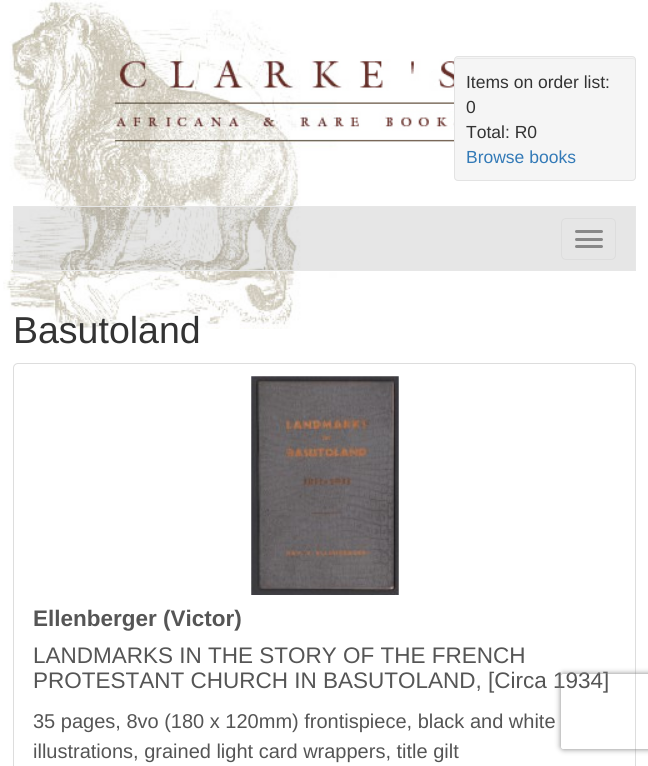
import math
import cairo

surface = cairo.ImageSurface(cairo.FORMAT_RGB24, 648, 766)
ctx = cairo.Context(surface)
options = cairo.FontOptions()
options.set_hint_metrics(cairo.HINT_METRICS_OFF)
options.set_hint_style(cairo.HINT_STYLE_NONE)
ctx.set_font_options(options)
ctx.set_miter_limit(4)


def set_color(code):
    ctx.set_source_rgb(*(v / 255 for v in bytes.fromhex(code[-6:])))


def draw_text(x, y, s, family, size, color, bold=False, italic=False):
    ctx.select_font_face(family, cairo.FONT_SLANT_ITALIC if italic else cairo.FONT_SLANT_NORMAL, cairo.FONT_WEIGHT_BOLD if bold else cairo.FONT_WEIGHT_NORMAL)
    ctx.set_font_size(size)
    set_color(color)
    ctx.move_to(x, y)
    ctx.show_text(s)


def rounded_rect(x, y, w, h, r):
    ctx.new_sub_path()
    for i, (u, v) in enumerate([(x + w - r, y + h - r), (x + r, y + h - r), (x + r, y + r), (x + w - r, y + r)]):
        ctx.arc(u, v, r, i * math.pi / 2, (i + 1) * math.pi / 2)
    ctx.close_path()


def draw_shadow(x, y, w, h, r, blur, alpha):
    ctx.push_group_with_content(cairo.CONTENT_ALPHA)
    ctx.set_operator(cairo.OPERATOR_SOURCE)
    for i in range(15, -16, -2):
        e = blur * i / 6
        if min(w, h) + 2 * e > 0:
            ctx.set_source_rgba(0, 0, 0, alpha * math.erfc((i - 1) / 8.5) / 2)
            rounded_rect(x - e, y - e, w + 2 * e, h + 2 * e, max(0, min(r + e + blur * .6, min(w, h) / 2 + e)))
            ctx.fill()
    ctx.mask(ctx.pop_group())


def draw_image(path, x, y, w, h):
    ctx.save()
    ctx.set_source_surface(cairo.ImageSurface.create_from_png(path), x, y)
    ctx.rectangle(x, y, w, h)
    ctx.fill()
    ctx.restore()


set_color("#ffffff")
ctx.paint()
draw_image("assets/img1.png", 3, 0, 459, 329)
set_color("#f5f5f5")
rounded_rect(454, 56, 182, 125, 4)
ctx.fill()
set_color("#e9e9e9")
ctx.new_path()
ctx.move_to(458, 59)
ctx.line_to(632, 59)
ctx.curve_to(634, 59, 635, 60, 635, 61)
ctx.curve_to(635, 59, 634, 58, 632, 58)
ctx.line_to(457, 58)
ctx.line_to(456, 59)
ctx.line_to(455, 61)
ctx.curve_to(455, 60, 456, 59, 458, 59)
ctx.close_path()
ctx.fill()
rounded_rect(454.5, 56.5, 181, 124, 3.5)
set_color("#e3e3e3")
ctx.set_line_width(1)
ctx.stroke()
draw_text(466, 88, "Items on order list:", "Liberation Sans", 17.5, "#333333")
draw_text(466, 113, "0", "Liberation Sans", 17.5, "#333333")
draw_text(466, 138, "Total: R0", "Liberation Sans", 17.5, "#333333")
draw_text(466, 163, "Browse books", "Liberation Sans", 17.5, "#337ab7")
ctx.set_source_rgba(0, 0, 0, 0.1)
ctx.rectangle(13.5, 206.5, 622, 64)
ctx.fill_preserve()
set_color("#e7e7e7")
ctx.stroke()
rounded_rect(561.5, 218.5, 54, 41, 4.5)
set_color("#dddddd")
ctx.stroke()
set_color("#888888")
rounded_rect(575, 230, 28, 3, 1.5)
ctx.fill()
rounded_rect(575, 238, 28, 3, 1.5)
ctx.fill()
rounded_rect(575, 245, 28, 3, 1.5)
ctx.fill()
draw_text(13, 343, "Basutoland", "Liberation Sans", 37.5, "#333333")
ctx.new_path()
ctx.move_to(18, 363.5)
ctx.line_to(631, 363.5)
ctx.curve_to(633.5, 363.5, 635.5, 365.5, 635.5, 368)
ctx.line_to(635.5, 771.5)
ctx.line_to(13.5, 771.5)
ctx.line_to(13.5, 368)
ctx.curve_to(13.5, 365.5, 15.5, 363.5, 18, 363.5)
ctx.close_path()
set_color("#dddddd")
ctx.stroke()
draw_image("assets/img2.png", 251, 376, 148, 219)
draw_text(33, 626, "Ellenberger (Victor)", "Liberation Sans", 22.5, "#555555", bold=True)
draw_text(33, 663, "LANDMARKS IN THE STORY OF THE FRENCH", "Liberation Sans", 22.5, "#555555")
draw_text(33, 688, "PROTESTANT CHURCH IN BASUTOLAND, [Circa 1934]", "Liberation Sans", 22.5, "#555555")
draw_text(33, 728, "35 pages, 8vo (180 x 120mm) frontispiece, black and white", "Liberation Sans", 20, "#555555")
draw_text(33, 758, "illustrations, grained light card wrappers, title gilt", "Liberation Sans", 20, "#555555")
ctx.save()
ctx.set_fill_rule(cairo.FILL_RULE_EVEN_ODD)
ctx.new_path()
ctx.move_to(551, 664)
ctx.line_to(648, 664)
ctx.line_to(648, 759)
ctx.line_to(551, 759)
ctx.close_path()
ctx.move_to(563.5, 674)
ctx.line_to(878.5, 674)
ctx.curve_to(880, 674, 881, 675, 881, 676.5)
ctx.line_to(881, 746.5)
ctx.curve_to(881, 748, 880, 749, 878.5, 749)
ctx.line_to(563.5, 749)
ctx.curve_to(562, 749, 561, 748, 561, 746.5)
ctx.line_to(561, 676.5)
ctx.curve_to(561, 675, 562, 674, 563.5, 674)
ctx.close_path()
ctx.clip()
set_color("#808080")
draw_shadow(561, 674, 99, 75, 2.5, 3, 1)
ctx.restore()
surface.write_to_png("output.png")
